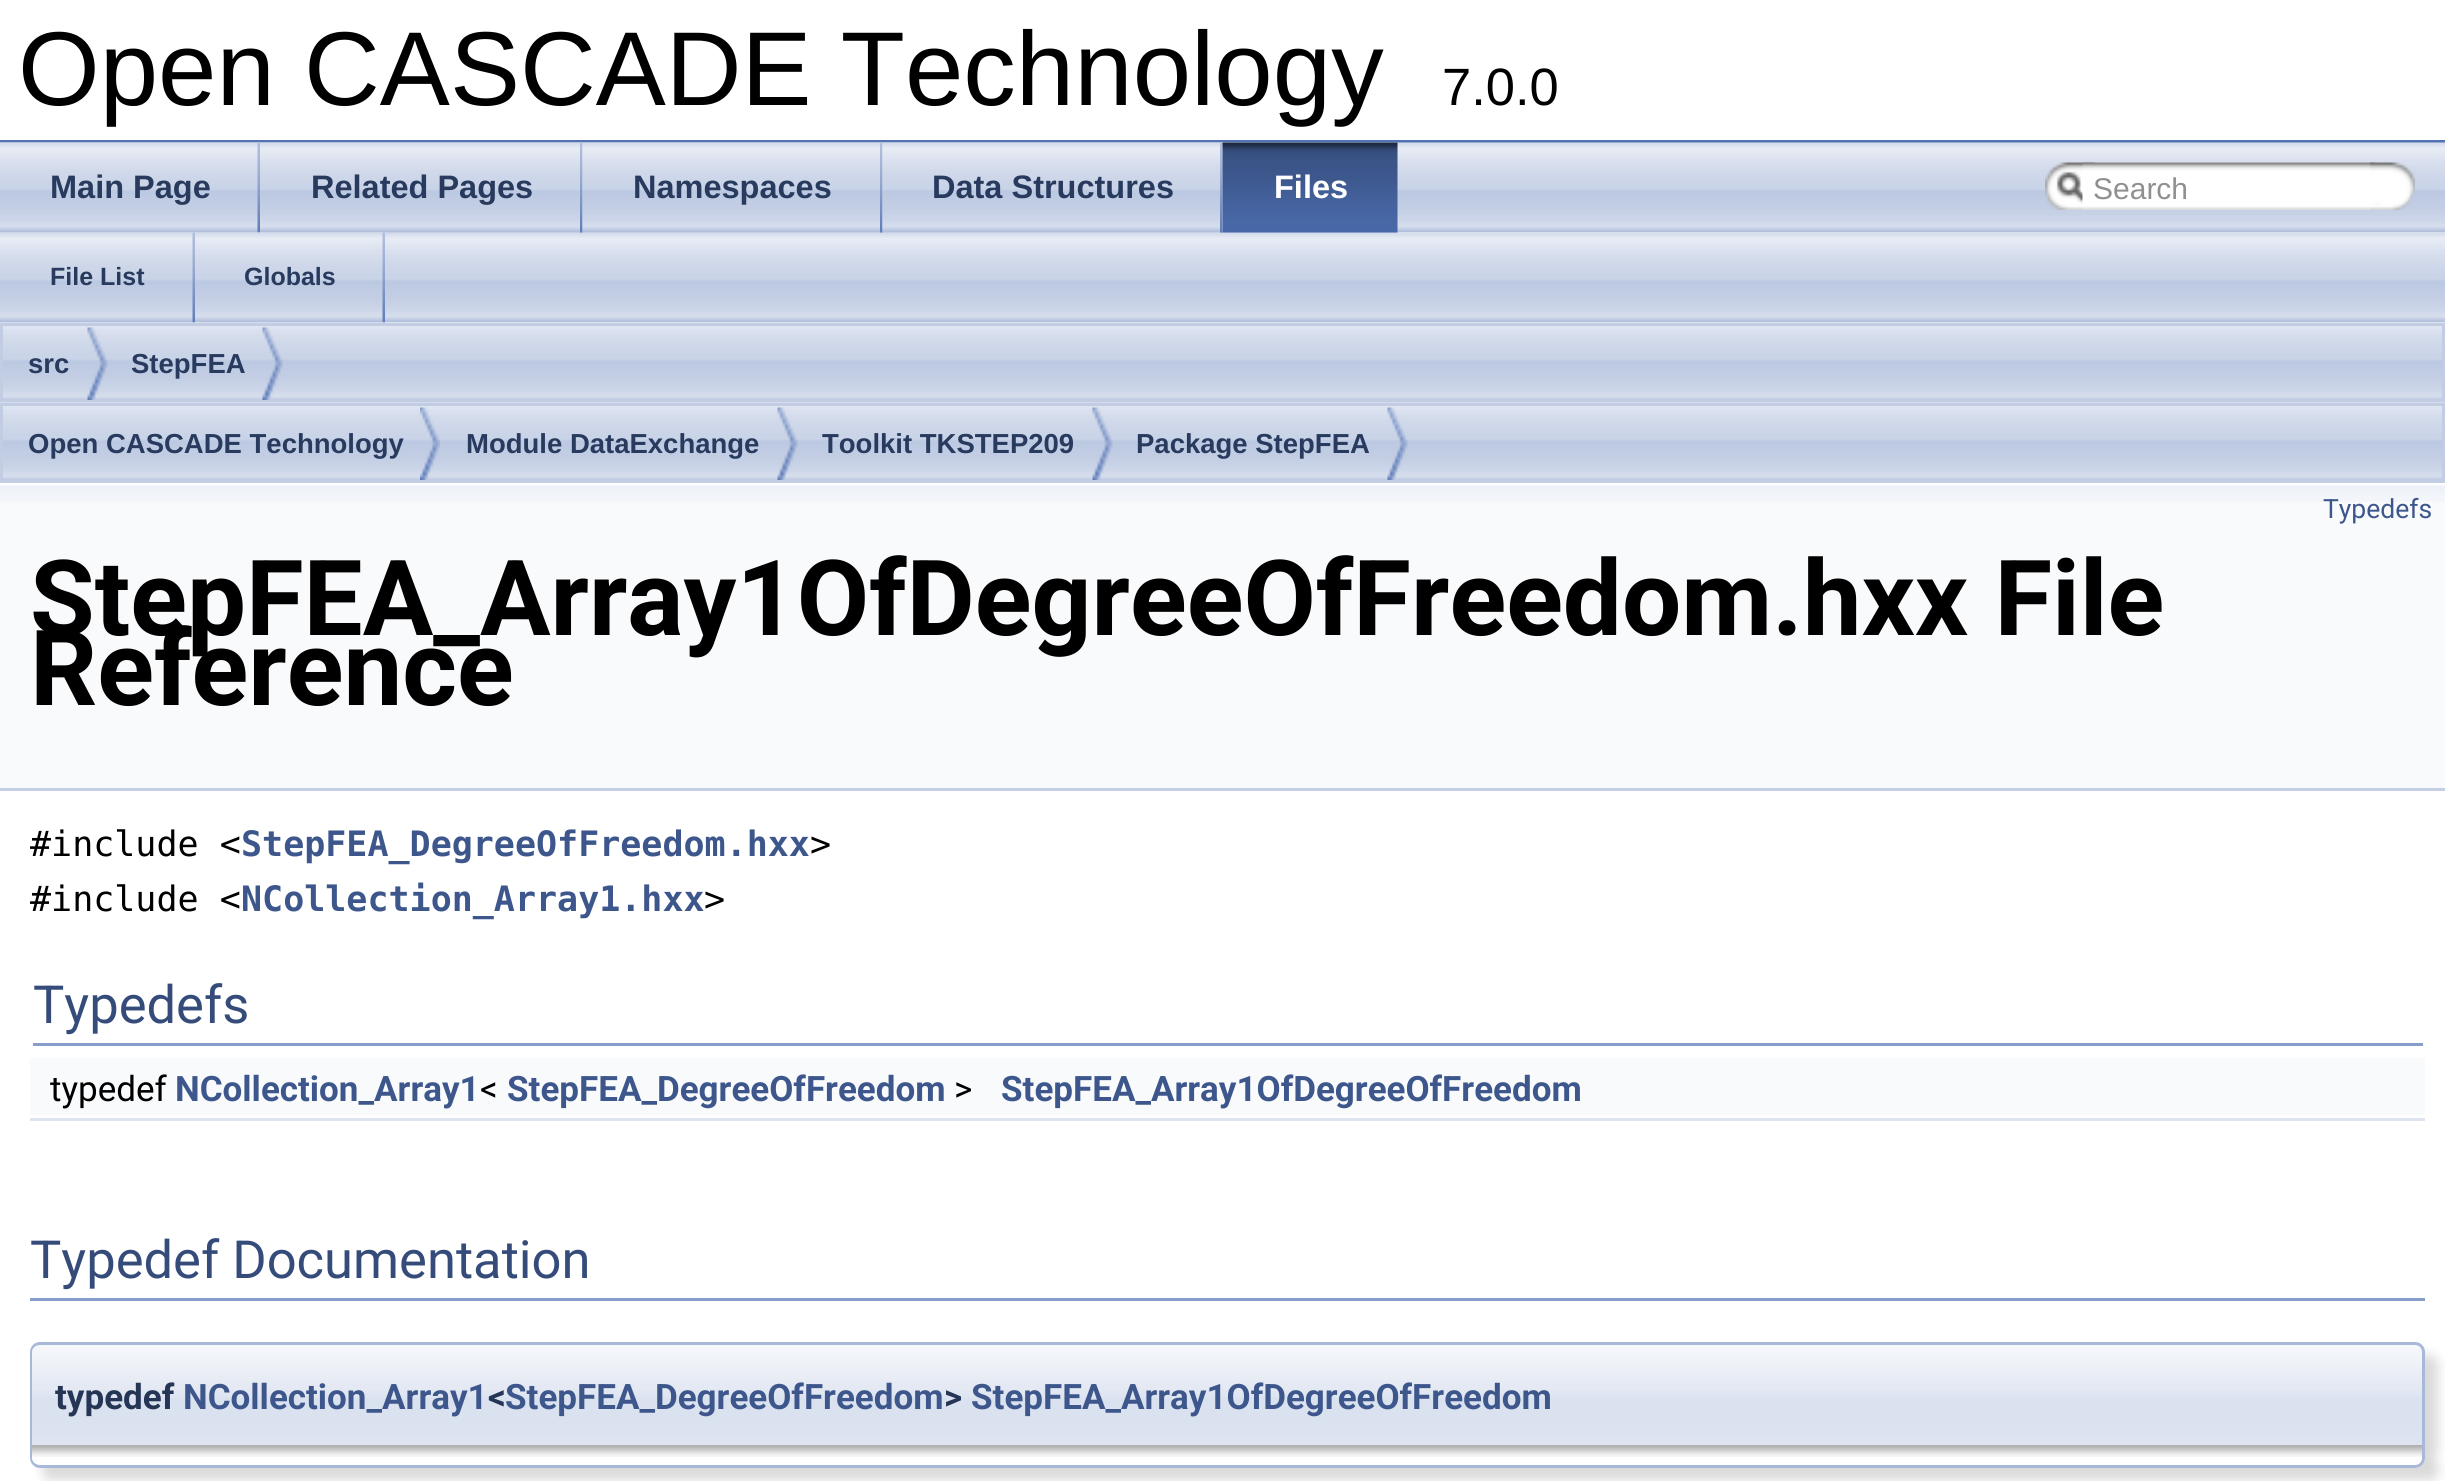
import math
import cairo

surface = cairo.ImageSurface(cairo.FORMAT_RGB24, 2445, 1481)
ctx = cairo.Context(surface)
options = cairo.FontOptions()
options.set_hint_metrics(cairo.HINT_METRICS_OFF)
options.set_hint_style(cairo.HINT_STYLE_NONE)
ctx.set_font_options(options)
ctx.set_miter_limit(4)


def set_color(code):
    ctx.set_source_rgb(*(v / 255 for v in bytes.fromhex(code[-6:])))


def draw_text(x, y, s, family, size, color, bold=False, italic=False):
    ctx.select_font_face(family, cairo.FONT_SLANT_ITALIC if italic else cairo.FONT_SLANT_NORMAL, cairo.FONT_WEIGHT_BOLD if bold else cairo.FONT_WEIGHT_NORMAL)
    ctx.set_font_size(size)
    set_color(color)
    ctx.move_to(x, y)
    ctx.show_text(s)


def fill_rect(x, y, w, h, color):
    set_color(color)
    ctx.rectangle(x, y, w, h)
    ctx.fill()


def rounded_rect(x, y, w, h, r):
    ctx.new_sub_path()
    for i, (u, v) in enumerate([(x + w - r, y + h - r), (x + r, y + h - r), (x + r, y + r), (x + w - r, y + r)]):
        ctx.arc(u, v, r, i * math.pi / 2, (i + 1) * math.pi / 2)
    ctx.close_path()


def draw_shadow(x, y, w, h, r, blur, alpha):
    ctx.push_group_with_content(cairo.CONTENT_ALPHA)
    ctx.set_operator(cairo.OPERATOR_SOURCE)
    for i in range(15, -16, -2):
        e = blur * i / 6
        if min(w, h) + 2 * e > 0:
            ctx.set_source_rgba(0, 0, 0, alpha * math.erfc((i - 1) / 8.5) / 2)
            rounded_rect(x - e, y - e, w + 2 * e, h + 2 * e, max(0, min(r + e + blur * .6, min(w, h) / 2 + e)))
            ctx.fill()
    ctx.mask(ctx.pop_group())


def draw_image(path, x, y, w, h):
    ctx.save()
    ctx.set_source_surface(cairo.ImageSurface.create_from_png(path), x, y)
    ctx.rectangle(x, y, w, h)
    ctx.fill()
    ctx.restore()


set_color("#ffffff")
ctx.paint()
fill_rect(0, 140, 2445, 3, "#5373b4")
draw_text(18, 105, "Open CASCADE Technology", "Liberation Sans", 105, "#000000")
draw_text(1442, 105, "7.0.0", "Liberation Sans", 52.5, "#000000")
draw_image("assets/img1.png", 0, 142, 2445, 91)
draw_image("assets/img2.png", 0, 142, 260, 91)
draw_image("assets/img3.png", 257, 143, 3, 90)
draw_text(50, 198, "Main Page", "Liberation Sans", 32.5, "#283a5d", bold=True)
draw_image("assets/img4.png", 260, 142, 323, 91)
draw_image("assets/img5.png", 580, 143, 3, 90)
draw_text(311, 198, "Related Pages", "Liberation Sans", 32.5, "#283a5d", bold=True)
draw_image("assets/img6.png", 582, 142, 301, 91)
draw_image("assets/img5.png", 880, 143, 3, 90)
draw_text(633, 198, "Namespaces", "Liberation Sans", 32.5, "#283a5d", bold=True)
draw_image("assets/img7.png", 882, 142, 341, 91)
draw_image("assets/img5.png", 1220, 143, 3, 90)
draw_text(932, 198, "Data Structures", "Liberation Sans", 32.5, "#283a5d", bold=True)
draw_image("assets/img8.png", 1222, 142, 176, 91)
draw_image("assets/img9.png", 1222, 142, 176, 91)
draw_text(1274, 198, "Files", "Liberation Sans", 32.5, "#ffffff", bold=True)
draw_image("assets/img10.png", 2045, 162, 50, 48)
draw_image("assets/img11.png", 2056, 171, 27, 32)
draw_image("assets/img12.png", 2082, 162, 293, 48)
draw_text(2093, 199, "Search", "Liberation Sans", 30, "#909090")
draw_image("assets/img13.png", 2370, 162, 45, 48)
draw_image("assets/img14.png", 0, 233, 2445, 90)
draw_image("assets/img15.png", 0, 232, 195, 91)
draw_image("assets/img16.png", 192, 232, 3, 91)
draw_text(50, 285, "File List", "Liberation Sans", 25, "#283a5d", bold=True)
draw_image("assets/img17.png", 195, 232, 190, 91)
draw_image("assets/img16.png", 382, 232, 3, 91)
draw_text(244, 285, "Globals", "Liberation Sans", 25, "#283a5d", bold=True)
draw_image("assets/img18.png", 0, 322, 2445, 78)
ctx.rectangle(1.5, 324.5, 2442, 77)
set_color("#c2cde4")
ctx.set_line_width(3)
ctx.stroke()
draw_image("assets/img19.png", 87, 327, 21, 73)
draw_text(28, 373, "src", "Liberation Sans", 27.5, "#283a5d", bold=True)
draw_image("assets/img20.png", 262, 327, 21, 73)
draw_text(131, 373, "StepFEA", "Liberation Sans", 27.5, "#283a5d", bold=True)
draw_image("assets/img21.png", 0, 402, 2445, 78)
ctx.rectangle(1.5, 404.5, 2442, 77)
set_color("#c2cde4")
ctx.stroke()
draw_image("assets/img22.png", 420, 407, 20, 73)
draw_text(28, 453, "Open CASCADE Technology", "Liberation Sans", 27.5, "#283a5d", bold=True)
draw_image("assets/img20.png", 777, 407, 21, 73)
draw_text(466, 453, "Module DataExchange", "Liberation Sans", 27.5, "#283a5d", bold=True)
draw_image("assets/img20.png", 1092, 407, 21, 73)
draw_text(822, 453, "Toolkit TKSTEP209", "Liberation Sans", 27.5, "#283a5d", bold=True)
draw_image("assets/img19.png", 1387, 407, 21, 73)
draw_text(1136, 453, "Package StepFEA", "Liberation Sans", 27.5, "#283a5d", bold=True)
fill_rect(0, 502, 2445, 286, "#f9fafc")
draw_image("assets/img23.png", 0, 483, 2445, 19)
fill_rect(0, 788, 2445, 3, "#c4cfe5")
draw_text(2323, 518, "Typedefs", "Roboto", 26.5, "#3d578c")
draw_text(30, 635, "StepFEA_Array1OfDegreeOfFreedom.hxx File", "Roboto", 105, "#000000", bold=True)
draw_text(30, 705, "Reference", "Roboto", 105, "#000000", bold=True)
draw_text(30, 856, "#include <", "DejaVu Sans Mono", 35, "#000000")
draw_text(241, 856, "StepFEA_DegreeOfFreedom.hxx", "DejaVu Sans Mono", 35, "#3d578c", bold=True)
draw_text(810, 856, ">", "DejaVu Sans Mono", 35, "#000000")
draw_text(30, 911, "#include <", "DejaVu Sans Mono", 35, "#000000")
draw_text(241, 911, "NCollection_Array1.hxx", "DejaVu Sans Mono", 35, "#3d578c", bold=True)
draw_text(704, 911, ">", "DejaVu Sans Mono", 35, "#000000")
fill_rect(33, 1043, 2390, 3, "#879ecb")
draw_text(33, 1023, "Typedefs", "Roboto", 52.5, "#354c7b")
fill_rect(30, 1058, 2395, 57, "#f9fafc")
draw_text(50, 1101, "typedef", "Roboto", 35, "#000000")
draw_text(175, 1101, "NCollection_Array1", "Roboto", 35, "#3d578c", bold=True)
draw_text(480, 1101, "<", "Roboto", 35, "#000000")
draw_text(507, 1101, "StepFEA_DegreeOfFreedom", "Roboto", 35, "#3d578c", bold=True)
draw_text(954, 1101, ">", "Roboto", 35, "#000000")
draw_text(1001, 1101, "StepFEA_Array1OfDegreeOfFreedom", "Roboto", 35, "#3d578c", bold=True)
fill_rect(30, 1118, 2395, 3, "#dee4f0")
fill_rect(30, 1298, 2395, 3, "#879ecb")
draw_text(30, 1278, "Typedef Documentation", "Roboto", 52.5, "#354c7b")
set_color("#000000")
draw_shadow(43, 1355, 2395, 103, 10, 6, 0.15)
draw_image("assets/img24.png", 30, 1345, 2395, 100)
set_color("#a8b8d9")
ctx.set_fill_rule(cairo.FILL_RULE_EVEN_ODD)
ctx.new_path()
ctx.move_to(40, 1342)
ctx.line_to(2415, 1342)
ctx.curve_to(2421, 1342, 2425, 1347, 2425, 1352)
ctx.line_to(2425, 1445)
ctx.line_to(30, 1445)
ctx.line_to(30, 1352)
ctx.curve_to(30, 1347, 34, 1342, 40, 1342)
ctx.close_path()
ctx.move_to(40, 1345)
ctx.line_to(2415, 1345)
ctx.curve_to(2419, 1345, 2422, 1348, 2422, 1352)
ctx.line_to(2422, 1445)
ctx.line_to(32, 1445)
ctx.line_to(32, 1352)
ctx.curve_to(32, 1348, 36, 1345, 40, 1345)
ctx.close_path()
ctx.fill()
draw_text(55, 1409, "typedef", "Roboto", 35, "#253555", bold=True)
draw_text(183, 1409, "NCollection_Array1", "Roboto", 35, "#3d578c", bold=True)
draw_text(488, 1409, "<", "Roboto", 35, "#253555", bold=True)
draw_text(505, 1409, "StepFEA_DegreeOfFreedom", "Roboto", 35, "#3d578c", bold=True)
draw_text(944, 1409, ">", "Roboto", 35, "#253555", bold=True)
draw_text(971, 1409, "StepFEA_Array1OfDegreeOfFreedom", "Roboto", 35, "#3d578c", bold=True)
set_color("#000000")
draw_shadow(43, 1458, 2395, 22, 10, 6, 0.15)
set_color("#ffffff")
ctx.new_path()
ctx.move_to(30, 1445)
ctx.line_to(2425, 1445)
ctx.line_to(2425, 1458)
ctx.curve_to(2425, 1463.5, 2420.5, 1468, 2415, 1468)
ctx.line_to(40, 1468)
ctx.curve_to(34.5, 1468, 30, 1463.5, 30, 1458)
ctx.close_path()
ctx.fill()
draw_image("assets/img25.png", 32, 1445, 2390, 12)
set_color("#a8b8d9")
ctx.new_path()
ctx.move_to(30, 1445)
ctx.line_to(2425, 1445)
ctx.line_to(2425, 1458)
ctx.curve_to(2425, 1463, 2421, 1468, 2415, 1468)
ctx.line_to(40, 1468)
ctx.curve_to(34, 1468, 30, 1463, 30, 1458)
ctx.close_path()
ctx.move_to(32, 1445)
ctx.line_to(2422, 1445)
ctx.line_to(2422, 1458)
ctx.curve_to(2422, 1462, 2419, 1465, 2415, 1465)
ctx.line_to(40, 1465)
ctx.curve_to(36, 1465, 32, 1462, 32, 1458)
ctx.close_path()
ctx.fill()
surface.write_to_png("output.png")
